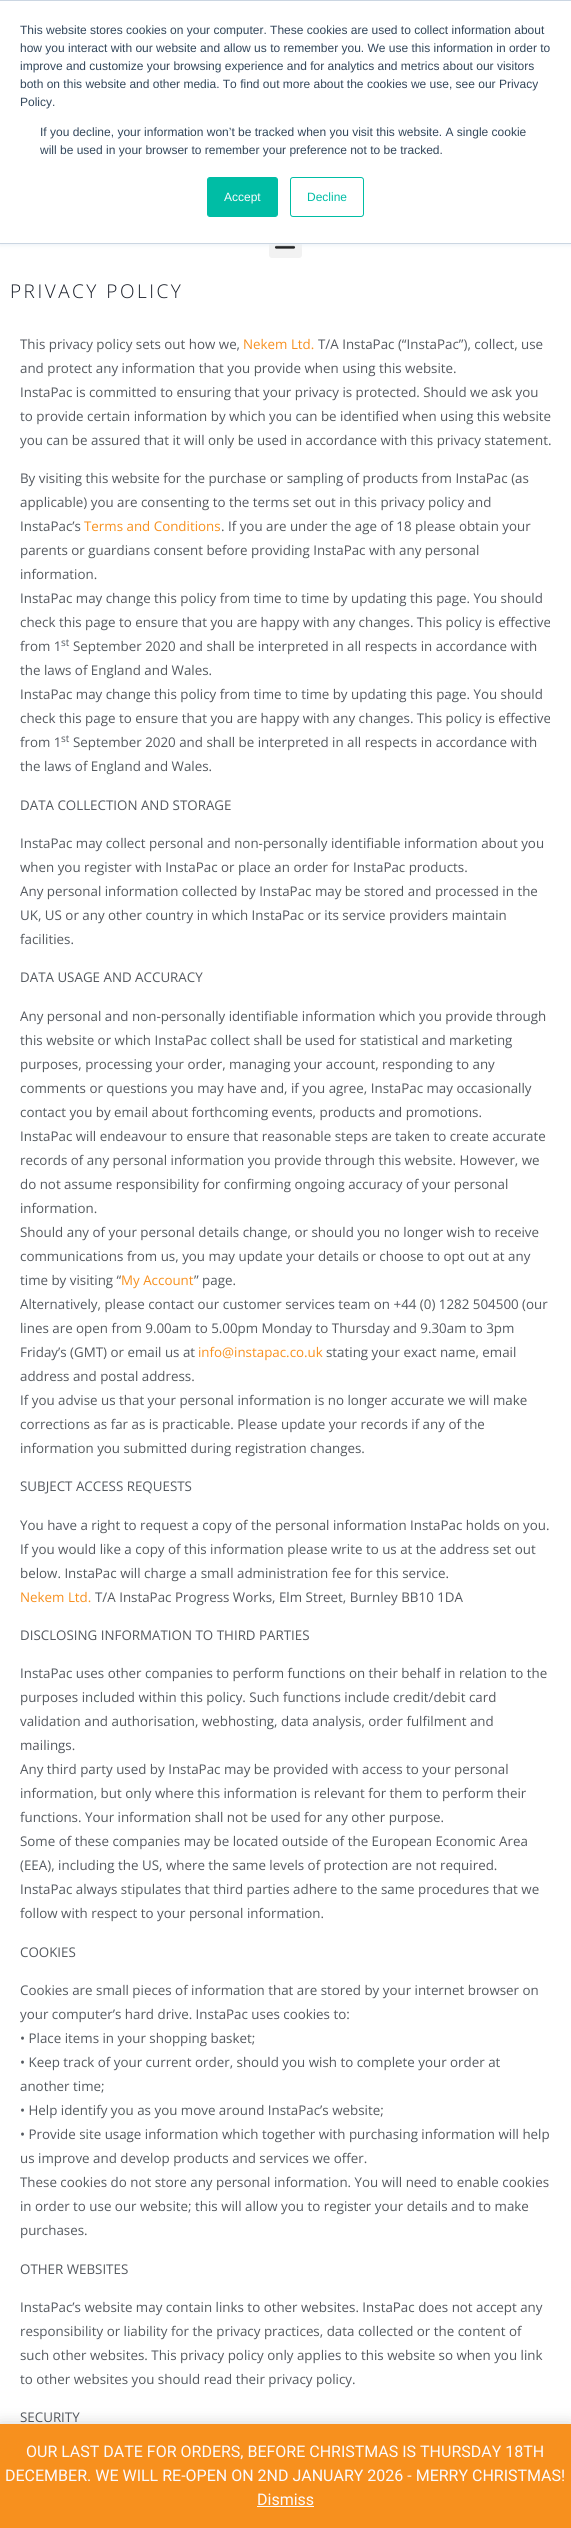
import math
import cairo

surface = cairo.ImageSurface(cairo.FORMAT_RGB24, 571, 2528)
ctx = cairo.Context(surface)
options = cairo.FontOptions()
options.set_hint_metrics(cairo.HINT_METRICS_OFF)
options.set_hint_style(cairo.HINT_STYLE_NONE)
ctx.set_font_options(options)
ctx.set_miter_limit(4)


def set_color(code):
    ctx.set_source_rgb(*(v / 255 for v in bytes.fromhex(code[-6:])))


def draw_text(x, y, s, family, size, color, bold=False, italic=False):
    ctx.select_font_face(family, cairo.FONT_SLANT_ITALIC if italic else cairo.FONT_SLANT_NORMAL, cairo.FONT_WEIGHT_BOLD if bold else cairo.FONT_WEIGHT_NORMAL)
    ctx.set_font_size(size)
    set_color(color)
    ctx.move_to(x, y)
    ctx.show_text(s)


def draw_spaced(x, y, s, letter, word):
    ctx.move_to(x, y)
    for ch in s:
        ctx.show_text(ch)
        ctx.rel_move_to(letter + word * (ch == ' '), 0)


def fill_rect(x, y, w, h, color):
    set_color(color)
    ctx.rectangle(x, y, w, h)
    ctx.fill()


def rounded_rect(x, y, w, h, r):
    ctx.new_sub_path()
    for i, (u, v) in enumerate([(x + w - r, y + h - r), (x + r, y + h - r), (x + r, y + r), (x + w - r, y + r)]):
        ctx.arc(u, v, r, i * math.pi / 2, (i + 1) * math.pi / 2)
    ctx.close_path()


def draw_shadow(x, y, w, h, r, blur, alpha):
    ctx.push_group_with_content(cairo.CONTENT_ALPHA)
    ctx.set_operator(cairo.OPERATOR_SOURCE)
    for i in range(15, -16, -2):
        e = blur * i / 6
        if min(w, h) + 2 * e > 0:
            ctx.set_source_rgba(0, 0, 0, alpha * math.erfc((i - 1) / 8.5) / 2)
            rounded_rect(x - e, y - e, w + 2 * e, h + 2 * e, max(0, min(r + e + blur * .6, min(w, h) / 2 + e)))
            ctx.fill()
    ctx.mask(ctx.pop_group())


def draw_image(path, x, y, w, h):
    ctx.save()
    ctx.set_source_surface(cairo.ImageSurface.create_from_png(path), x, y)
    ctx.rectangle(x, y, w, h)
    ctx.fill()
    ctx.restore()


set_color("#ffffff")
ctx.paint()
set_color("#f2f2f2")
rounded_rect(269, 225, 33, 33, 3)
ctx.fill()
draw_image("assets/img1.png", 274, 245, 22, 4)
set_color("#eaf0f6")
draw_shadow(0, 1, 571, 244, 0, 2.5, 1)
fill_rect(0, 1, 571, 242, "#ffffff")
fill_rect(0, 0, 571, 1, "#cbd6e2")
fill_rect(0, 243, 571, 1, "#cbd6e2")
draw_text(20, 34, "This website stores cookies on your computer. These cookies are used to collect information about", "Liberation Sans", 12, "#33475b")
draw_text(20, 52, "how you interact with our website and allow us to remember you. We use this information in order to", "Liberation Sans", 12, "#33475b")
draw_text(20, 70, "improve and customize your browsing experience and for analytics and metrics about our visitors", "Liberation Sans", 12, "#33475b")
draw_text(20, 88, "both on this website and other media. To find out more about the cookies we use, see our Privacy", "Liberation Sans", 12, "#33475b")
draw_text(20, 106, "Policy.", "Liberation Sans", 12, "#33475b")
draw_text(40, 136, "If you decline, your information won’t be tracked when you visit this website. A single cookie", "Liberation Sans", 12, "#33475b")
draw_text(40, 154, "will be used in your browser to remember your preference not to be tracked.", "Liberation Sans", 12, "#33475b")
set_color("#00bda5")
rounded_rect(207.5, 177.5, 70, 39, 2.5)
ctx.fill_preserve()
ctx.set_line_width(1)
ctx.stroke()
draw_text(224, 201, "Accept", "Liberation Sans", 12, "#fcfbfe")
rounded_rect(290.5, 177.5, 73, 39, 2.5)
set_color("#00bda5")
ctx.stroke()
draw_text(307, 201, "Decline", "Liberation Sans", 12, "#00bda5")
ctx.select_font_face("Open Sans Light")
ctx.set_font_size(19)
set_color("#191e29")
draw_spaced(10, 298, "PRIVACY POLICY", 2.5, 0)
draw_text(20, 349, "This privacy policy sets out how we,", "Open Sans", 13.35, "#54595f")
draw_text(243, 349, "Nekem Ltd.", "Open Sans", 13.35, "#f7901e")
draw_text(318, 349, "T/A InstaPac (“InstaPac”), collect, use", "Open Sans", 13.35, "#54595f")
draw_text(20, 373, "and protect any information that you provide when using this website.", "Open Sans", 13.35, "#54595f")
draw_text(20, 397, "InstaPac is committed to ensuring that your privacy is protected. Should we ask you", "Open Sans", 13.35, "#54595f")
draw_text(20, 421, "to provide certain information by which you can be identified when using this website", "Open Sans", 13.35, "#54595f")
draw_text(20, 445, "you can be assured that it will only be used in accordance with this privacy statement.", "Open Sans", 13.35, "#54595f")
draw_text(20, 483, "By visiting this website for the purchase or sampling of products from InstaPac (as", "Open Sans", 13.35, "#54595f")
draw_text(20, 507, "applicable) you are consenting to the terms set out in this privacy policy and", "Open Sans", 13.35, "#54595f")
draw_text(20, 531, "InstaPac’s", "Open Sans", 13.35, "#54595f")
draw_text(84, 531, "Terms and Conditions", "Open Sans", 13.35, "#f7901e")
draw_text(221, 531, ". If you are under the age of 18 please obtain your", "Open Sans", 13.35, "#54595f")
draw_text(20, 555, "parents or guardians consent before providing InstaPac with any personal", "Open Sans", 13.35, "#54595f")
draw_text(20, 579, "information.", "Open Sans", 13.35, "#54595f")
draw_text(20, 603, "InstaPac may change this policy from time to time by updating this page. You should", "Open Sans", 13.35, "#54595f")
draw_text(20, 627, "check this page to ensure that you are happy with any changes. This policy is effective", "Open Sans", 13.35, "#54595f")
draw_text(20, 651, "from 1", "Open Sans", 13.35, "#54595f")
draw_text(61, 646, "st", "Open Sans", 10, "#54595f")
draw_text(73, 651, "September 2020 and shall be interpreted in all respects in accordance with", "Open Sans", 13.35, "#54595f")
draw_text(20, 675, "the laws of England and Wales.", "Open Sans", 13.35, "#54595f")
draw_text(20, 699, "InstaPac may change this policy from time to time by updating this page. You should", "Open Sans", 13.35, "#54595f")
draw_text(20, 723, "check this page to ensure that you are happy with any changes. This policy is effective", "Open Sans", 13.35, "#54595f")
draw_text(20, 747, "from 1", "Open Sans", 13.35, "#54595f")
draw_text(61, 742, "st", "Open Sans", 10, "#54595f")
draw_text(73, 747, "September 2020 and shall be interpreted in all respects in accordance with", "Open Sans", 13.35, "#54595f")
draw_text(20, 771, "the laws of England and Wales.", "Open Sans", 13.35, "#54595f")
draw_text(20, 810, "DATA COLLECTION AND STORAGE", "Open Sans", 13.35, "#54595f")
draw_text(20, 848, "InstaPac may collect personal and non-personally identifiable information about you", "Open Sans", 13.35, "#54595f")
draw_text(20, 872, "when you register with InstaPac or place an order for InstaPac products.", "Open Sans", 13.35, "#54595f")
draw_text(20, 896, "Any personal information collected by InstaPac may be stored and processed in the", "Open Sans", 13.35, "#54595f")
draw_text(20, 920, "UK, US or any other country in which InstaPac or its service providers maintain", "Open Sans", 13.35, "#54595f")
draw_text(20, 944, "facilities.", "Open Sans", 13.35, "#54595f")
draw_text(20, 982, "DATA USAGE AND ACCURACY", "Open Sans", 13.35, "#54595f")
draw_text(20, 1021, "Any personal and non-personally identifiable information which you provide through", "Open Sans", 13.35, "#54595f")
draw_text(20, 1045, "this website or which InstaPac collect shall be used for statistical and marketing", "Open Sans", 13.35, "#54595f")
draw_text(20, 1069, "purposes, processing your order, managing your account, responding to any", "Open Sans", 13.35, "#54595f")
draw_text(20, 1093, "comments or questions you may have and, if you agree, InstaPac may occasionally", "Open Sans", 13.35, "#54595f")
draw_text(20, 1117, "contact you by email about forthcoming events, products and promotions.", "Open Sans", 13.35, "#54595f")
draw_text(20, 1141, "InstaPac will endeavour to ensure that reasonable steps are taken to create accurate", "Open Sans", 13.35, "#54595f")
draw_text(20, 1165, "records of any personal information you provide through this website. However, we", "Open Sans", 13.35, "#54595f")
draw_text(20, 1189, "do not assume responsibility for confirming ongoing accuracy of your personal", "Open Sans", 13.35, "#54595f")
draw_text(20, 1213, "information.", "Open Sans", 13.35, "#54595f")
draw_text(20, 1237, "Should any of your personal details change, or should you no longer wish to receive", "Open Sans", 13.35, "#54595f")
draw_text(20, 1261, "communications from us, you may update your details or choose to opt out at any", "Open Sans", 13.35, "#54595f")
draw_text(20, 1285, "time by visiting “", "Open Sans", 13.35, "#54595f")
draw_text(121, 1285, "My Account", "Open Sans", 13.35, "#f7901e")
draw_text(194, 1285, "” page.", "Open Sans", 13.35, "#54595f")
draw_text(20, 1309, "Alternatively, please contact our customer services team on +44 (0) 1282 504500 (our", "Open Sans", 13.35, "#54595f")
draw_text(20, 1333, "lines are open from 9.00am to 5.00pm Monday to Thursday and 9.30am to 3pm", "Open Sans", 13.35, "#54595f")
draw_text(20, 1357, "Friday’s (GMT) or email us at", "Open Sans", 13.35, "#54595f")
draw_text(198, 1357, "info@instapac.co.uk", "Open Sans", 13.35, "#f7901e")
draw_text(326, 1357, "stating your exact name, email", "Open Sans", 13.35, "#54595f")
draw_text(20, 1381, "address and postal address.", "Open Sans", 13.35, "#54595f")
draw_text(20, 1405, "If you advise us that your personal information is no longer accurate we will make", "Open Sans", 13.35, "#54595f")
draw_text(20, 1429, "corrections as far as is practicable. Please update your records if any of the", "Open Sans", 13.35, "#54595f")
draw_text(20, 1453, "information you submitted during registration changes.", "Open Sans", 13.35, "#54595f")
draw_text(20, 1491, "SUBJECT ACCESS REQUESTS", "Open Sans", 13.35, "#54595f")
draw_text(20, 1530, "You have a right to request a copy of the personal information InstaPac holds on you.", "Open Sans", 13.35, "#54595f")
draw_text(20, 1554, "If you would like a copy of this information please write to us at the address set out", "Open Sans", 13.35, "#54595f")
draw_text(20, 1578, "below. InstaPac will charge a small administration fee for this service.", "Open Sans", 13.35, "#54595f")
draw_text(20, 1602, "Nekem Ltd.", "Open Sans", 13.35, "#f7901e")
draw_text(95, 1602, "T/A InstaPac Progress Works, Elm Street, Burnley BB10 1DA", "Open Sans", 13.35, "#54595f")
draw_text(20, 1640, "DISCLOSING INFORMATION TO THIRD PARTIES", "Open Sans", 13.35, "#54595f")
draw_text(20, 1678, "InstaPac uses other companies to perform functions on their behalf in relation to the", "Open Sans", 13.35, "#54595f")
draw_text(20, 1702, "purposes included within this policy. Such functions include credit/debit card", "Open Sans", 13.35, "#54595f")
draw_text(20, 1726, "validation and authorisation, webhosting, data analysis, order fulfilment and", "Open Sans", 13.35, "#54595f")
draw_text(20, 1750, "mailings.", "Open Sans", 13.35, "#54595f")
draw_text(20, 1774, "Any third party used by InstaPac may be provided with access to your personal", "Open Sans", 13.35, "#54595f")
draw_text(20, 1798, "information, but only where this information is relevant for them to perform their", "Open Sans", 13.35, "#54595f")
draw_text(20, 1822, "functions. Your information shall not be used for any other purpose.", "Open Sans", 13.35, "#54595f")
draw_text(20, 1846, "Some of these companies may be located outside of the European Economic Area", "Open Sans", 13.35, "#54595f")
draw_text(20, 1870, "(EEA), including the US, where the same levels of protection are not required.", "Open Sans", 13.35, "#54595f")
draw_text(20, 1894, "InstaPac always stipulates that third parties adhere to the same procedures that we", "Open Sans", 13.35, "#54595f")
draw_text(20, 1918, "follow with respect to your personal information.", "Open Sans", 13.35, "#54595f")
draw_text(20, 1957, "COOKIES", "Open Sans", 13.35, "#54595f")
draw_text(20, 1995, "Cookies are small pieces of information that are stored by your internet browser on", "Open Sans", 13.35, "#54595f")
draw_text(20, 2019, "your computer’s hard drive. InstaPac uses cookies to:", "Open Sans", 13.35, "#54595f")
draw_text(20, 2043, "• Place items in your shopping basket;", "Open Sans", 13.35, "#54595f")
draw_text(20, 2067, "• Keep track of your current order, should you wish to complete your order at", "Open Sans", 13.35, "#54595f")
draw_text(20, 2091, "another time;", "Open Sans", 13.35, "#54595f")
draw_text(20, 2115, "• Help identify you as you move around InstaPac’s website;", "Open Sans", 13.35, "#54595f")
draw_text(20, 2139, "• Provide site usage information which together with purchasing information will help", "Open Sans", 13.35, "#54595f")
draw_text(20, 2163, "us improve and develop products and services we offer.", "Open Sans", 13.35, "#54595f")
draw_text(20, 2187, "These cookies do not store any personal information. You will need to enable cookies", "Open Sans", 13.35, "#54595f")
draw_text(20, 2211, "in order to use our website; this will allow you to register your details and to make", "Open Sans", 13.35, "#54595f")
draw_text(20, 2235, "purchases.", "Open Sans", 13.35, "#54595f")
draw_text(20, 2274, "OTHER WEBSITES", "Open Sans", 13.35, "#54595f")
draw_text(20, 2312, "InstaPac’s website may contain links to other websites. InstaPac does not accept any", "Open Sans", 13.35, "#54595f")
draw_text(20, 2336, "responsibility or liability for the privacy practices, data collected or the content of", "Open Sans", 13.35, "#54595f")
draw_text(20, 2360, "such other websites. This privacy policy only applies to this website so when you link", "Open Sans", 13.35, "#54595f")
draw_text(20, 2384, "to other websites you should read their privacy policy.", "Open Sans", 13.35, "#54595f")
draw_text(20, 2422, "SECURITY", "Open Sans", 13.35, "#54595f")
set_color("#000000")
draw_shadow(0, 2425, 571, 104, 0, 8, 0.2)
fill_rect(0, 2424, 571, 104, "#f7901e")
draw_text(26, 2457, "OUR LAST DATE FOR ORDERS, BEFORE CHRISTMAS IS THURSDAY 18TH", "Roboto", 16, "#fcfbfe")
draw_text(5, 2481, "DECEMBER. WE WILL RE-OPEN ON 2ND JANUARY 2026 - MERRY CHRISTMAS!", "Roboto", 16, "#fcfbfe")
draw_text(257, 2505, "Dismiss", "Roboto", 16, "#fcfbfe")
fill_rect(257, 2506, 57, 1, "#fcfbfe")
surface.write_to_png("output.png")
